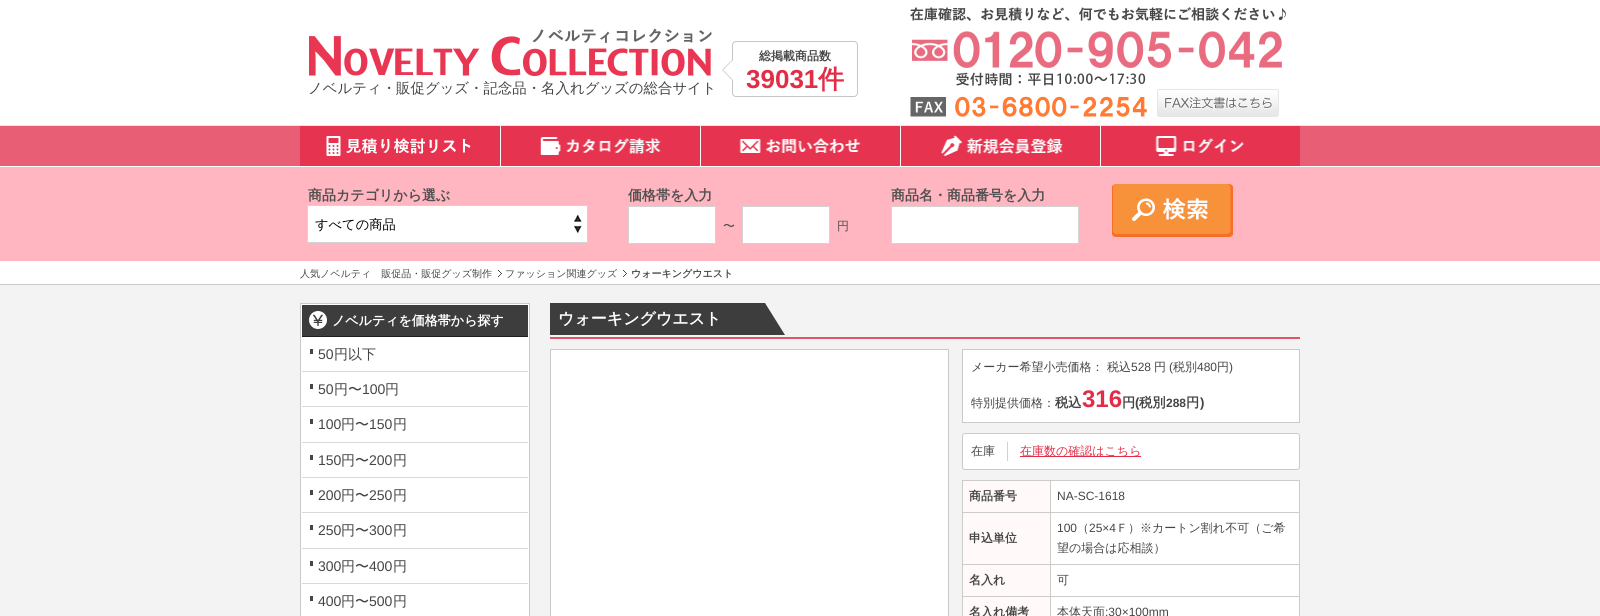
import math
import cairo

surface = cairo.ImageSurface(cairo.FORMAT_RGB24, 1600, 616)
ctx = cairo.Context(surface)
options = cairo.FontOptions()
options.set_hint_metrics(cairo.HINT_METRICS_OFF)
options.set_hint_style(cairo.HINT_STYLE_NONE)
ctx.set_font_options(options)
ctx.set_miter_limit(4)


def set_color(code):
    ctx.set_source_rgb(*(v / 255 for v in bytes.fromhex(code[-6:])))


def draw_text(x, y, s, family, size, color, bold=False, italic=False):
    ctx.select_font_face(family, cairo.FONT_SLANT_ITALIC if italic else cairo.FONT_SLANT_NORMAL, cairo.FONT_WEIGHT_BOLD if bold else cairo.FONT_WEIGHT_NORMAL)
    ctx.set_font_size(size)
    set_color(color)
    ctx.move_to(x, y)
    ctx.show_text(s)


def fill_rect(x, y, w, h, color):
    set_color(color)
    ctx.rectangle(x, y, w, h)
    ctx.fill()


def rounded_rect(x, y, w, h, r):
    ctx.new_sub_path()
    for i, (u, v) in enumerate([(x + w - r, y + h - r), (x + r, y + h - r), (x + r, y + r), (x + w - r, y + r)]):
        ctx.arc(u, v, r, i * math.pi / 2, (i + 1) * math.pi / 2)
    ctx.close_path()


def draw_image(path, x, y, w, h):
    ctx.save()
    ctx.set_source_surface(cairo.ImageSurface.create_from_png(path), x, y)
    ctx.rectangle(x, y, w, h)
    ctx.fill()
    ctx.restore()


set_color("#f3f3f3")
ctx.paint()
fill_rect(0, 0, 1600, 125, "#ffffff")
draw_image("assets/img1.png", 309, 28, 403, 48)
draw_text(308, 93, "ノベルティ・販促グッズ・記念品・名入れグッズの総合サイト", "WenQuanYi Zen Hei Medium", 14.4, "#454545")
rounded_rect(732.5, 41.5, 125, 55, 3.5)
set_color("#c5c5c5")
ctx.set_line_width(1)
ctx.stroke()
draw_text(759, 60, "総掲載商品数", "WenQuanYi Zen Hei", 12, "#454545", bold=True)
set_color("#c5c5c5")
ctx.new_path()
ctx.move_to(733, 59)
ctx.line_to(733, 81)
ctx.line_to(722, 70)
ctx.close_path()
ctx.fill()
set_color("#ffffff")
ctx.new_path()
ctx.move_to(733, 60)
ctx.line_to(733, 80)
ctx.line_to(723, 70)
ctx.close_path()
ctx.fill()
draw_text(746, 88, "39031", "Liberation Sans", 26, "#e22d47", bold=True)
draw_text(818, 88, "件", "WenQuanYi Zen Hei", 26, "#e22d47", bold=True)
draw_image("assets/img2.png", 910, 7, 376, 79)
draw_image("assets/img3.png", 910, 96, 237, 21)
draw_image("assets/img4.png", 1157, 89, 122, 28)
fill_rect(0, 126, 1600, 40, "#e85e75")
fill_rect(0, 125, 1600, 1, "#e7e7e7")
fill_rect(0, 166, 1600, 1, "#ffffff")
draw_image("assets/img5.png", 300, 126, 200, 40)
fill_rect(500, 126, 1, 40, "#ffffff")
draw_image("assets/img6.png", 501, 126, 199, 40)
fill_rect(700, 126, 1, 40, "#ffffff")
draw_image("assets/img7.png", 701, 126, 199, 40)
fill_rect(900, 126, 1, 40, "#ffffff")
draw_image("assets/img8.png", 901, 126, 199, 40)
fill_rect(1100, 126, 1, 40, "#ffffff")
draw_image("assets/img9.png", 1101, 126, 199, 40)
fill_rect(0, 167, 1600, 94, "#ffb6c1")
draw_text(308, 200, "商品カテゴリから選ぶ", "WenQuanYi Zen Hei", 14, "#4f4f4f", bold=True)
fill_rect(308, 206, 279, 36, "#ffffff")
draw_image("assets/img10.png", 574, 214, 8, 19)
ctx.rectangle(307.5, 205.5, 280, 37)
set_color("#d3d3d3")
ctx.stroke()
draw_text(315, 229, "すべての商品", "WenQuanYi Zen Hei Medium", 13.25, "#000000")
draw_text(628, 200, "価格帯を入力", "WenQuanYi Zen Hei", 14, "#4f4f4f", bold=True)
set_color("#ffffff")
ctx.rectangle(628.5, 206.5, 87, 37)
ctx.fill_preserve()
set_color("#d3d3d3")
ctx.stroke()
draw_text(723, 230, "〜", "WenQuanYi Zen Hei Medium", 12, "#4f4f4f")
set_color("#ffffff")
ctx.rectangle(742.5, 206.5, 87, 37)
ctx.fill_preserve()
set_color("#d3d3d3")
ctx.stroke()
draw_text(837, 230, "円", "WenQuanYi Zen Hei Medium", 12, "#4f4f4f")
draw_text(891, 200, "商品名・商品番号を入力", "WenQuanYi Zen Hei", 14, "#4f4f4f", bold=True)
set_color("#ffffff")
ctx.rectangle(891.5, 206.5, 187, 37)
ctx.fill_preserve()
set_color("#d3d3d3")
ctx.stroke()
draw_image("assets/img11.png", 1112, 184, 121, 53)
fill_rect(0, 261, 1600, 23, "#ffffff")
fill_rect(0, 284, 1600, 1, "#cacaca")
draw_text(300, 277, "人気ノベルティ　販促品・販促グッズ制作", "WenQuanYi Zen Hei Medium", 10, "#454545")
draw_image("assets/img12.png", 498, 270, 4, 7)
draw_text(505, 277, "ファッション関連グッズ", "WenQuanYi Zen Hei Medium", 10, "#454545")
draw_image("assets/img12.png", 623, 270, 4, 7)
draw_text(631, 277, "ウォーキングウエスト", "WenQuanYi Zen Hei", 10, "#454545", bold=True)
set_color("#ffffff")
ctx.rectangle(300.5, 303.5, 229, 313)
ctx.fill_preserve()
set_color("#cacaca")
ctx.stroke()
fill_rect(302, 305, 226, 31, "#3d3d3d")
draw_image("assets/img13.png", 309, 311, 18, 18)
fill_rect(302, 336, 226, 1, "#1d1d1d")
draw_text(332, 325, "ノベルティを価格帯から探す", "WenQuanYi Zen Hei", 13, "#ffffff", bold=True)
fill_rect(302, 371, 226, 1, "#dadada")
fill_rect(310, 349, 3, 5, "#454545")
draw_text(318, 359, "50", "Liberation Sans", 14, "#454545")
draw_text(334, 359, "円以下", "WenQuanYi Zen Hei Medium", 14, "#454545")
fill_rect(302, 406, 226, 1, "#dadada")
fill_rect(310, 384, 3, 5, "#454545")
draw_text(318, 394, "50", "Liberation Sans", 14, "#454545")
draw_text(334, 394, "円〜", "WenQuanYi Zen Hei Medium", 14, "#454545")
draw_text(362, 394, "100", "Liberation Sans", 14, "#454545")
draw_text(385, 394, "円", "WenQuanYi Zen Hei Medium", 14, "#454545")
fill_rect(302, 442, 226, 1, "#dadada")
fill_rect(310, 419, 3, 5, "#454545")
draw_text(318, 429, "100", "Liberation Sans", 14, "#454545")
draw_text(341, 429, "円〜", "WenQuanYi Zen Hei Medium", 14, "#454545")
draw_text(369, 429, "150", "Liberation Sans", 14, "#454545")
draw_text(393, 429, "円", "WenQuanYi Zen Hei Medium", 14, "#454545")
fill_rect(302, 477, 226, 1, "#dadada")
fill_rect(310, 455, 3, 5, "#454545")
draw_text(318, 465, "150", "Liberation Sans", 14, "#454545")
draw_text(341, 465, "円〜", "WenQuanYi Zen Hei Medium", 14, "#454545")
draw_text(369, 465, "200", "Liberation Sans", 14, "#454545")
draw_text(393, 465, "円", "WenQuanYi Zen Hei Medium", 14, "#454545")
fill_rect(302, 512, 226, 1, "#dadada")
fill_rect(310, 490, 3, 5, "#454545")
draw_text(318, 500, "200", "Liberation Sans", 14, "#454545")
draw_text(341, 500, "円〜", "WenQuanYi Zen Hei Medium", 14, "#454545")
draw_text(369, 500, "250", "Liberation Sans", 14, "#454545")
draw_text(393, 500, "円", "WenQuanYi Zen Hei Medium", 14, "#454545")
fill_rect(302, 548, 226, 1, "#dadada")
fill_rect(310, 525, 3, 5, "#454545")
draw_text(318, 535, "250", "Liberation Sans", 14, "#454545")
draw_text(341, 535, "円〜", "WenQuanYi Zen Hei Medium", 14, "#454545")
draw_text(369, 535, "300", "Liberation Sans", 14, "#454545")
draw_text(393, 535, "円", "WenQuanYi Zen Hei Medium", 14, "#454545")
fill_rect(302, 583, 226, 1, "#dadada")
fill_rect(310, 561, 3, 5, "#454545")
draw_text(318, 571, "300", "Liberation Sans", 14, "#454545")
draw_text(341, 571, "円〜", "WenQuanYi Zen Hei Medium", 14, "#454545")
draw_text(369, 571, "400", "Liberation Sans", 14, "#454545")
draw_text(393, 571, "円", "WenQuanYi Zen Hei Medium", 14, "#454545")
fill_rect(310, 596, 3, 5, "#454545")
draw_text(318, 606, "400", "Liberation Sans", 14, "#454545")
draw_text(341, 606, "円〜", "WenQuanYi Zen Hei Medium", 14, "#454545")
draw_text(369, 606, "500", "Liberation Sans", 14, "#454545")
draw_text(393, 606, "円", "WenQuanYi Zen Hei Medium", 14, "#454545")
fill_rect(550, 303, 215, 32, "#3d3d3d")
draw_image("assets/img14.png", 765, 303, 21, 32)
draw_text(558, 324, "ウォーキングウエスト", "WenQuanYi Zen Hei", 16, "#ffffff", bold=True)
fill_rect(550, 337, 750, 2, "#e25569")
set_color("#ffffff")
ctx.rectangle(550.5, 349.5, 398, 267)
ctx.fill_preserve()
set_color("#cacaca")
ctx.stroke()
set_color("#ffffff")
ctx.rectangle(962.5, 349.5, 337, 73)
ctx.fill_preserve()
set_color("#cacaca")
ctx.stroke()
draw_text(971, 371, "メーカー希望小売価格：", "WenQuanYi Zen Hei Medium", 12, "#454545")
draw_text(1107, 371, "税込", "WenQuanYi Zen Hei Medium", 12, "#454545")
draw_text(1131, 371, "528", "Liberation Sans", 12, "#454545")
draw_text(1154, 371, "円", "WenQuanYi Zen Hei Medium", 12, "#454545")
draw_text(1169, 371, "(", "Liberation Sans", 12, "#454545")
draw_text(1173, 371, "税別", "WenQuanYi Zen Hei Medium", 12, "#454545")
draw_text(1197, 371, "480", "Liberation Sans", 12, "#454545")
draw_text(1217, 371, "円", "WenQuanYi Zen Hei Medium", 12, "#454545")
draw_text(1229, 371, ")", "Liberation Sans", 12, "#454545")
draw_text(971, 407, "特別提供価格：", "WenQuanYi Zen Hei Medium", 12, "#454545")
draw_text(1055, 407, "税込", "WenQuanYi Zen Hei", 13.25, "#454545", bold=True)
draw_text(1082, 407, "316", "Liberation Sans", 24, "#e22d47", bold=True)
draw_text(1122, 407, "円", "WenQuanYi Zen Hei", 13.25, "#454545", bold=True)
draw_text(1135, 407, "(", "Liberation Sans", 13.25, "#454545", bold=True)
draw_text(1139, 407, "税別", "WenQuanYi Zen Hei", 13.25, "#454545", bold=True)
draw_text(1166, 407, "288", "Liberation Sans", 12, "#454545", bold=True)
draw_text(1186, 407, "円", "WenQuanYi Zen Hei", 13.25, "#454545", bold=True)
draw_text(1200, 407, ")", "Liberation Sans", 13.25, "#454545", bold=True)
set_color("#ffffff")
rounded_rect(962.5, 433.5, 337, 36, 2.5)
ctx.fill_preserve()
set_color("#cacaca")
ctx.stroke()
fill_rect(1007, 442, 1, 19, "#d1d1d1")
draw_text(971, 455, "在庫", "WenQuanYi Zen Hei Medium", 12, "#454545")
fill_rect(1020, 456, 121, 1, "#e22d47")
draw_text(1020, 455, "在庫数の確認はこちら", "WenQuanYi Zen Hei Medium", 12, "#e22d47")
fill_rect(963, 481, 87, 31, "#fff9f9")
fill_rect(1050, 480, 250, 1, "#cccccc")
fill_rect(1050, 512, 250, 1, "#cccccc")
fill_rect(1050, 564, 250, 1, "#cccccc")
fill_rect(1050, 596, 250, 1, "#cccccc")
fill_rect(1050, 596, 1, 20, "#cccccc")
fill_rect(962, 596, 89, 1, "#cccccc")
fill_rect(1050, 564, 1, 33, "#cccccc")
fill_rect(962, 564, 89, 1, "#cccccc")
fill_rect(1050, 512, 1, 53, "#cccccc")
fill_rect(962, 512, 89, 1, "#cccccc")
fill_rect(1050, 480, 1, 33, "#cccccc")
fill_rect(962, 480, 89, 1, "#cccccc")
fill_rect(962, 596, 1, 20, "#cccccc")
fill_rect(962, 564, 1, 33, "#cccccc")
fill_rect(962, 512, 1, 53, "#cccccc")
fill_rect(962, 480, 1, 33, "#cccccc")
draw_text(969, 500, "商品番号", "WenQuanYi Zen Hei", 12, "#454545", bold=True)
fill_rect(1051, 481, 248, 31, "#ffffff")
fill_rect(1299, 596, 1, 20, "#cccccc")
fill_rect(1299, 564, 1, 33, "#cccccc")
fill_rect(1299, 512, 1, 53, "#cccccc")
fill_rect(1299, 480, 1, 33, "#cccccc")
draw_text(1057, 500, "NA-SC-1618", "Liberation Sans", 12, "#454545")
fill_rect(963, 513, 87, 51, "#fff9f9")
draw_text(969, 542, "申込単位", "WenQuanYi Zen Hei", 12, "#454545", bold=True)
fill_rect(1051, 513, 248, 51, "#ffffff")
draw_text(1057, 532, "100", "Liberation Sans", 12, "#454545")
draw_text(1077, 532, "（", "WenQuanYi Zen Hei Medium", 12, "#454545")
draw_text(1089, 532, "25×4", "Liberation Sans", 12, "#454545")
draw_text(1116, 532, "Ｆ）※カートン割れ不可（ご希", "WenQuanYi Zen Hei Medium", 12, "#454545")
draw_text(1057, 552, "望の場合は応相談）", "WenQuanYi Zen Hei Medium", 12, "#454545")
fill_rect(963, 565, 87, 31, "#fff9f9")
draw_text(969, 584, "名入れ", "WenQuanYi Zen Hei", 12, "#454545", bold=True)
fill_rect(1051, 565, 248, 31, "#ffffff")
draw_text(1057, 584, "可", "WenQuanYi Zen Hei Medium", 12, "#454545")
fill_rect(963, 597, 87, 19, "#fff9f9")
draw_text(969, 616, "名入れ備考", "WenQuanYi Zen Hei", 12, "#454545", bold=True)
fill_rect(1051, 597, 248, 19, "#ffffff")
draw_text(1057, 616, "本体天面", "WenQuanYi Zen Hei Medium", 12, "#454545")
draw_text(1105, 616, ":30×100mm", "Liberation Sans", 12, "#454545")
surface.write_to_png("output.png")
